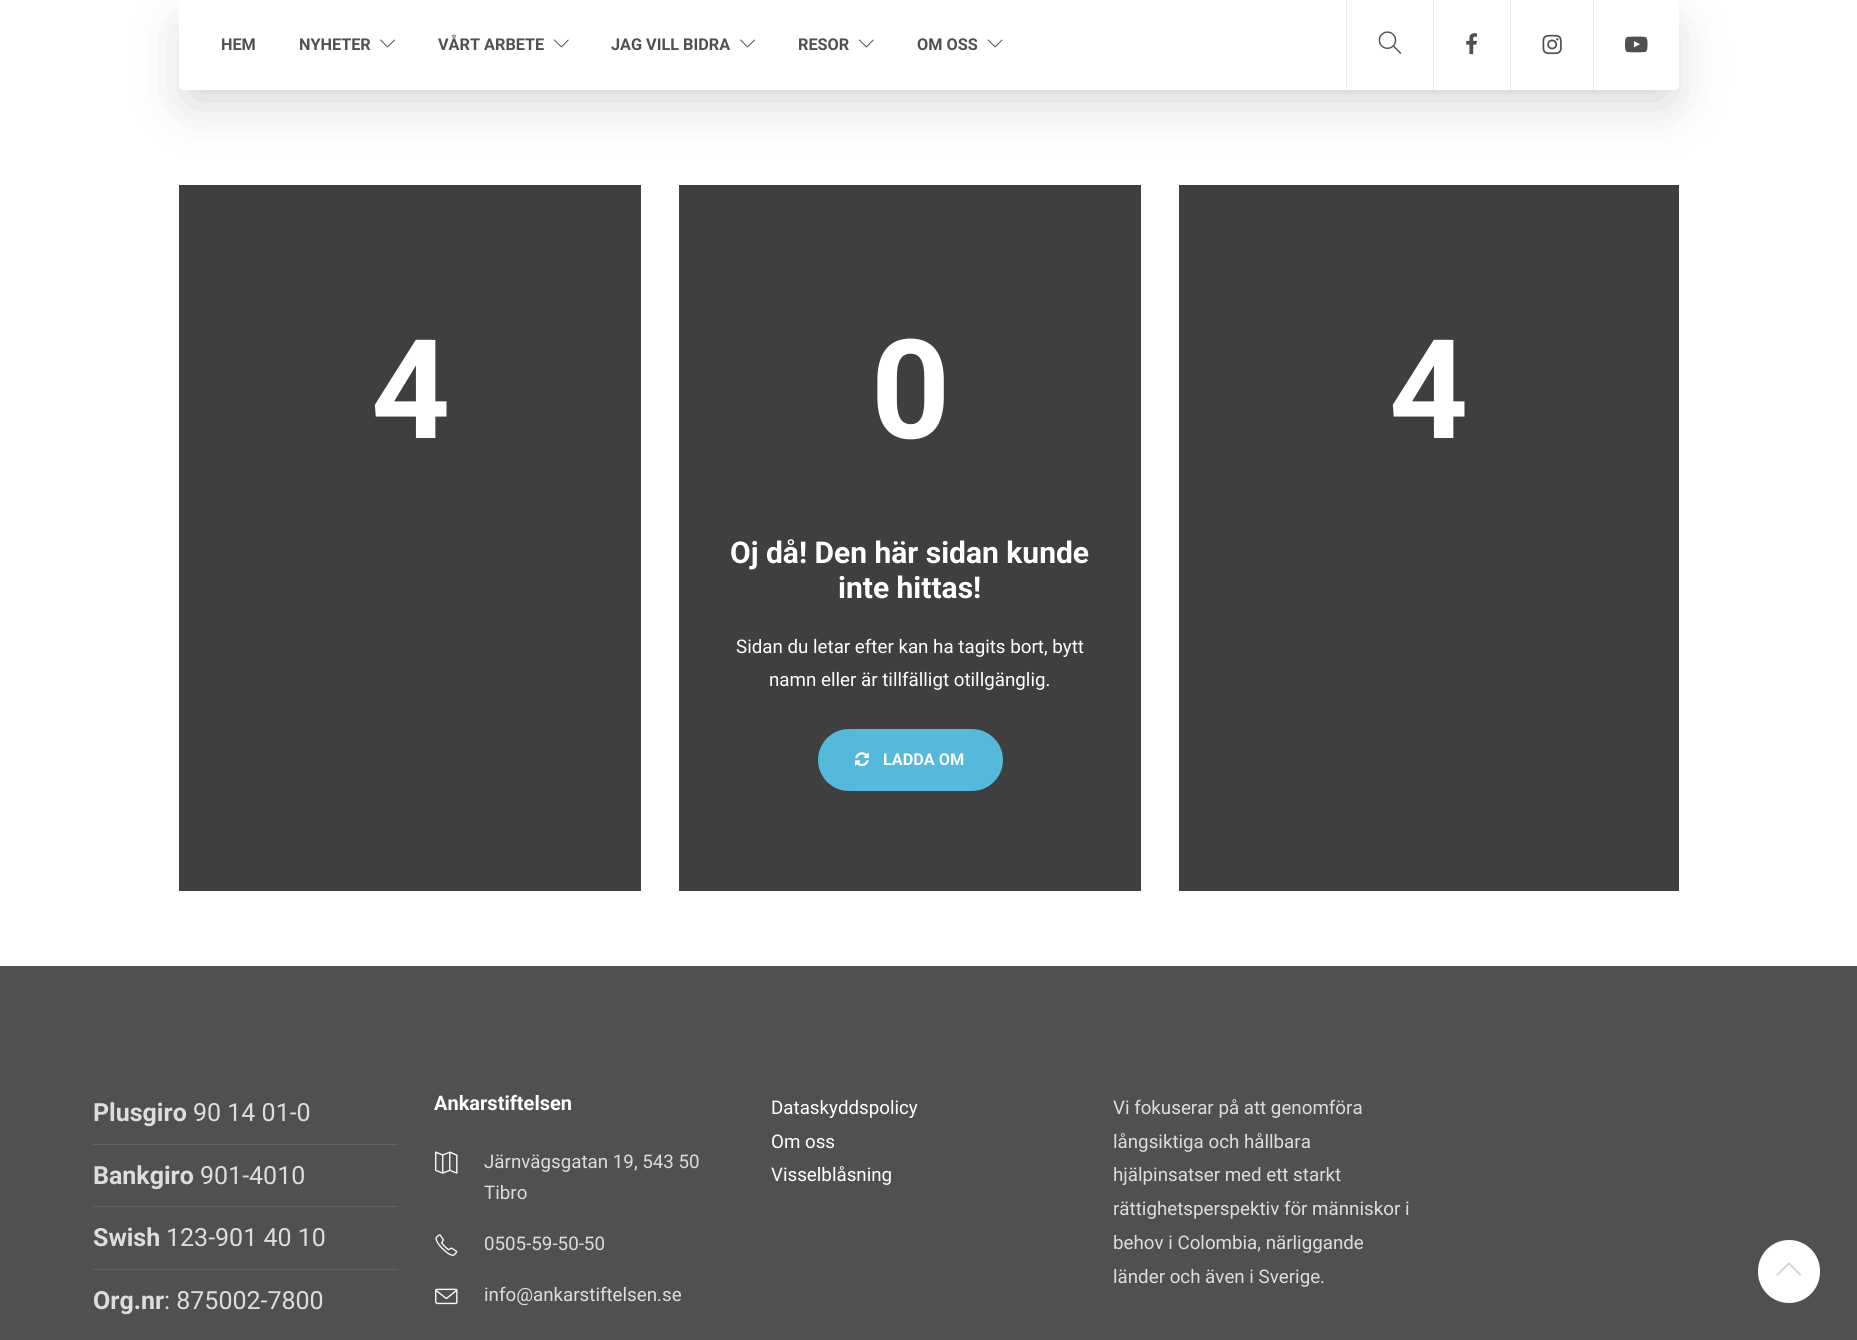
import math
import cairo

surface = cairo.ImageSurface(cairo.FORMAT_RGB24, 1857, 1340)
ctx = cairo.Context(surface)
options = cairo.FontOptions()
options.set_hint_metrics(cairo.HINT_METRICS_OFF)
options.set_hint_style(cairo.HINT_STYLE_NONE)
ctx.set_font_options(options)
ctx.set_miter_limit(4)


def set_color(code):
    ctx.set_source_rgb(*(v / 255 for v in bytes.fromhex(code[-6:])))


def draw_text(x, y, s, family, size, color, bold=False, italic=False):
    ctx.select_font_face(family, cairo.FONT_SLANT_ITALIC if italic else cairo.FONT_SLANT_NORMAL, cairo.FONT_WEIGHT_BOLD if bold else cairo.FONT_WEIGHT_NORMAL)
    ctx.set_font_size(size)
    set_color(color)
    ctx.move_to(x, y)
    ctx.show_text(s)


def fill_rect(x, y, w, h, color):
    set_color(color)
    ctx.rectangle(x, y, w, h)
    ctx.fill()


def rounded_rect(x, y, w, h, r):
    ctx.new_sub_path()
    for i, (u, v) in enumerate([(x + w - r, y + h - r), (x + r, y + h - r), (x + r, y + r), (x + w - r, y + r)]):
        ctx.arc(u, v, r, i * math.pi / 2, (i + 1) * math.pi / 2)
    ctx.close_path()


def draw_shadow(x, y, w, h, r, blur, alpha):
    ctx.push_group_with_content(cairo.CONTENT_ALPHA)
    ctx.set_operator(cairo.OPERATOR_SOURCE)
    for i in range(15, -16, -2):
        e = blur * i / 6
        if min(w, h) + 2 * e > 0:
            ctx.set_source_rgba(0, 0, 0, alpha * math.erfc((i - 1) / 8.5) / 2)
            rounded_rect(x - e, y - e, w + 2 * e, h + 2 * e, max(0, min(r + e + blur * .6, min(w, h) / 2 + e)))
            ctx.fill()
    ctx.mask(ctx.pop_group())


def draw_image(path, x, y, w, h):
    ctx.save()
    ctx.set_source_surface(cairo.ImageSurface.create_from_png(path), x, y)
    ctx.rectangle(x, y, w, h)
    ctx.fill()
    ctx.restore()


set_color("#ffffff")
ctx.paint()
set_color("#000000")
draw_shadow(190, 30, 1478, 68, 0, 28, 0.2)
set_color("#ffffff")
rounded_rect(179, 0, 1500, 90, 4)
ctx.fill()
draw_text(221, 50, "HEM", "Roboto", 16.25, "#505050", bold=True)
draw_text(299, 50, "NYHETER", "Roboto", 16.25, "#505050", bold=True)
draw_image("assets/img1.png", 380, 39, 15, 9)
draw_text(438, 50, "VÅRT ARBETE", "Roboto", 16.25, "#505050", bold=True)
draw_image("assets/img2.png", 553, 39, 16, 9)
draw_text(611, 50, "JAG VILL BIDRA", "Roboto", 16.25, "#505050", bold=True)
draw_image("assets/img1.png", 740, 39, 15, 9)
draw_text(798, 50, "RESOR", "Roboto", 16.25, "#505050", bold=True)
draw_image("assets/img2.png", 858, 39, 16, 9)
draw_text(917, 50, "OM OSS", "Roboto", 16.25, "#505050", bold=True)
draw_image("assets/img3.png", 987, 39, 16, 9)
fill_rect(1346, 0, 1, 90, "#ebebeb")
draw_image("assets/img4.png", 1378, 31, 24, 23)
fill_rect(1433, 0, 1, 90, "#ebebeb")
draw_image("assets/img5.png", 1466, 33, 12, 22)
fill_rect(1510, 0, 1, 90, "#ebebeb")
draw_image("assets/img6.png", 1542, 34, 20, 21)
fill_rect(1593, 0, 1, 90, "#ebebeb")
draw_image("assets/img7.png", 1625, 36, 23, 17)
fill_rect(179, 185, 1500, 706, "#3f3f3f")
fill_rect(641, 185, 38, 706, "#ffffff")
draw_text(371, 438, "4", "Roboto", 138, "#ffffff", bold=True)
fill_rect(1141, 185, 38, 706, "#ffffff")
draw_text(871, 438, "0", "Roboto", 138, "#ffffff", bold=True)
draw_text(730, 563, "Oj då! Den här sidan kunde", "Roboto", 30, "#ffffff", bold=True)
draw_text(838, 598, "inte hittas!", "Roboto", 30, "#ffffff", bold=True)
draw_text(736, 653, "Sidan du letar efter kan ha tagits bort, bytt", "Roboto", 18.75, "#ffffff")
draw_text(769, 686, "namn eller är tillfälligt otillgänglig.", "Roboto", 18.75, "#ffffff")
set_color("#54b9da")
rounded_rect(818, 729, 185, 62, 31)
ctx.fill()
draw_image("assets/img8.png", 855, 752, 14, 15)
draw_text(883, 765, "LADDA OM", "Roboto", 16.25, "#ffffff", bold=True)
draw_text(1389, 438, "4", "Roboto", 138, "#ffffff", bold=True)
fill_rect(0, 966, 1857, 374, "#505050")
fill_rect(93, 1144, 305, 1, "#626262")
draw_text(93, 1121, "Plusgiro", "Roboto", 25, "#dddddd", bold=True)
draw_text(193, 1121, "90 14 01-0", "Roboto", 25, "#dddddd")
fill_rect(93, 1206, 305, 1, "#626262")
draw_text(93, 1184, "Bankgiro", "Roboto", 25, "#dddddd", bold=True)
draw_text(200, 1184, "901-4010", "Roboto", 25, "#dddddd")
fill_rect(93, 1269, 305, 1, "#626262")
draw_text(93, 1246, "Swish", "Roboto", 25, "#dddddd", bold=True)
draw_text(166, 1246, "123-901 40 10", "Roboto", 25, "#dddddd")
draw_text(93, 1309, "Org.nr", "Roboto", 25, "#dddddd", bold=True)
draw_text(164, 1309, ": 875002-7800", "Roboto", 25, "#dddddd")
draw_text(434, 1110, "Ankarstiftelsen", "Roboto", 20, "#ffffff", bold=True)
draw_image("assets/img9.png", 435, 1151, 23, 23)
draw_text(484, 1168, "Järnvägsgatan 19, 543 50", "Roboto", 18.75, "#dddddd")
draw_text(484, 1199, "Tibro", "Roboto", 18.75, "#dddddd")
draw_image("assets/img10.png", 435, 1234, 23, 22)
draw_text(484, 1250, "0505-59-50-50", "Roboto", 18.75, "#dddddd")
draw_image("assets/img11.png", 435, 1288, 23, 17)
draw_text(484, 1301, "info@ankarstiftelsen.se", "Roboto", 18.75, "#dddddd")
draw_text(771, 1114, "Dataskyddspolicy", "Roboto", 18.75, "#ffffff")
draw_text(771, 1148, "Om oss", "Roboto", 18.75, "#ffffff")
draw_text(771, 1181, "Visselblåsning", "Roboto", 18.75, "#ffffff")
draw_text(1113, 1114, "Vi fokuserar på att genomföra", "Roboto", 18.75, "#dddddd")
draw_text(1113, 1148, "långsiktiga och hållbara", "Roboto", 18.75, "#dddddd")
draw_text(1113, 1181, "hjälpinsatser med ett starkt", "Roboto", 18.75, "#dddddd")
draw_text(1113, 1215, "rättighetsperspektiv för människor i", "Roboto", 18.75, "#dddddd")
draw_text(1113, 1249, "behov i Colombia, närliggande", "Roboto", 18.75, "#dddddd")
draw_text(1113, 1283, "länder och även i Sverige.", "Roboto", 18.75, "#dddddd")
set_color("#ffffff")
rounded_rect(1758, 1240, 62, 63, 31)
ctx.fill()
draw_image("assets/img12.png", 1776, 1262, 25, 14)
surface.write_to_png("output.png")
